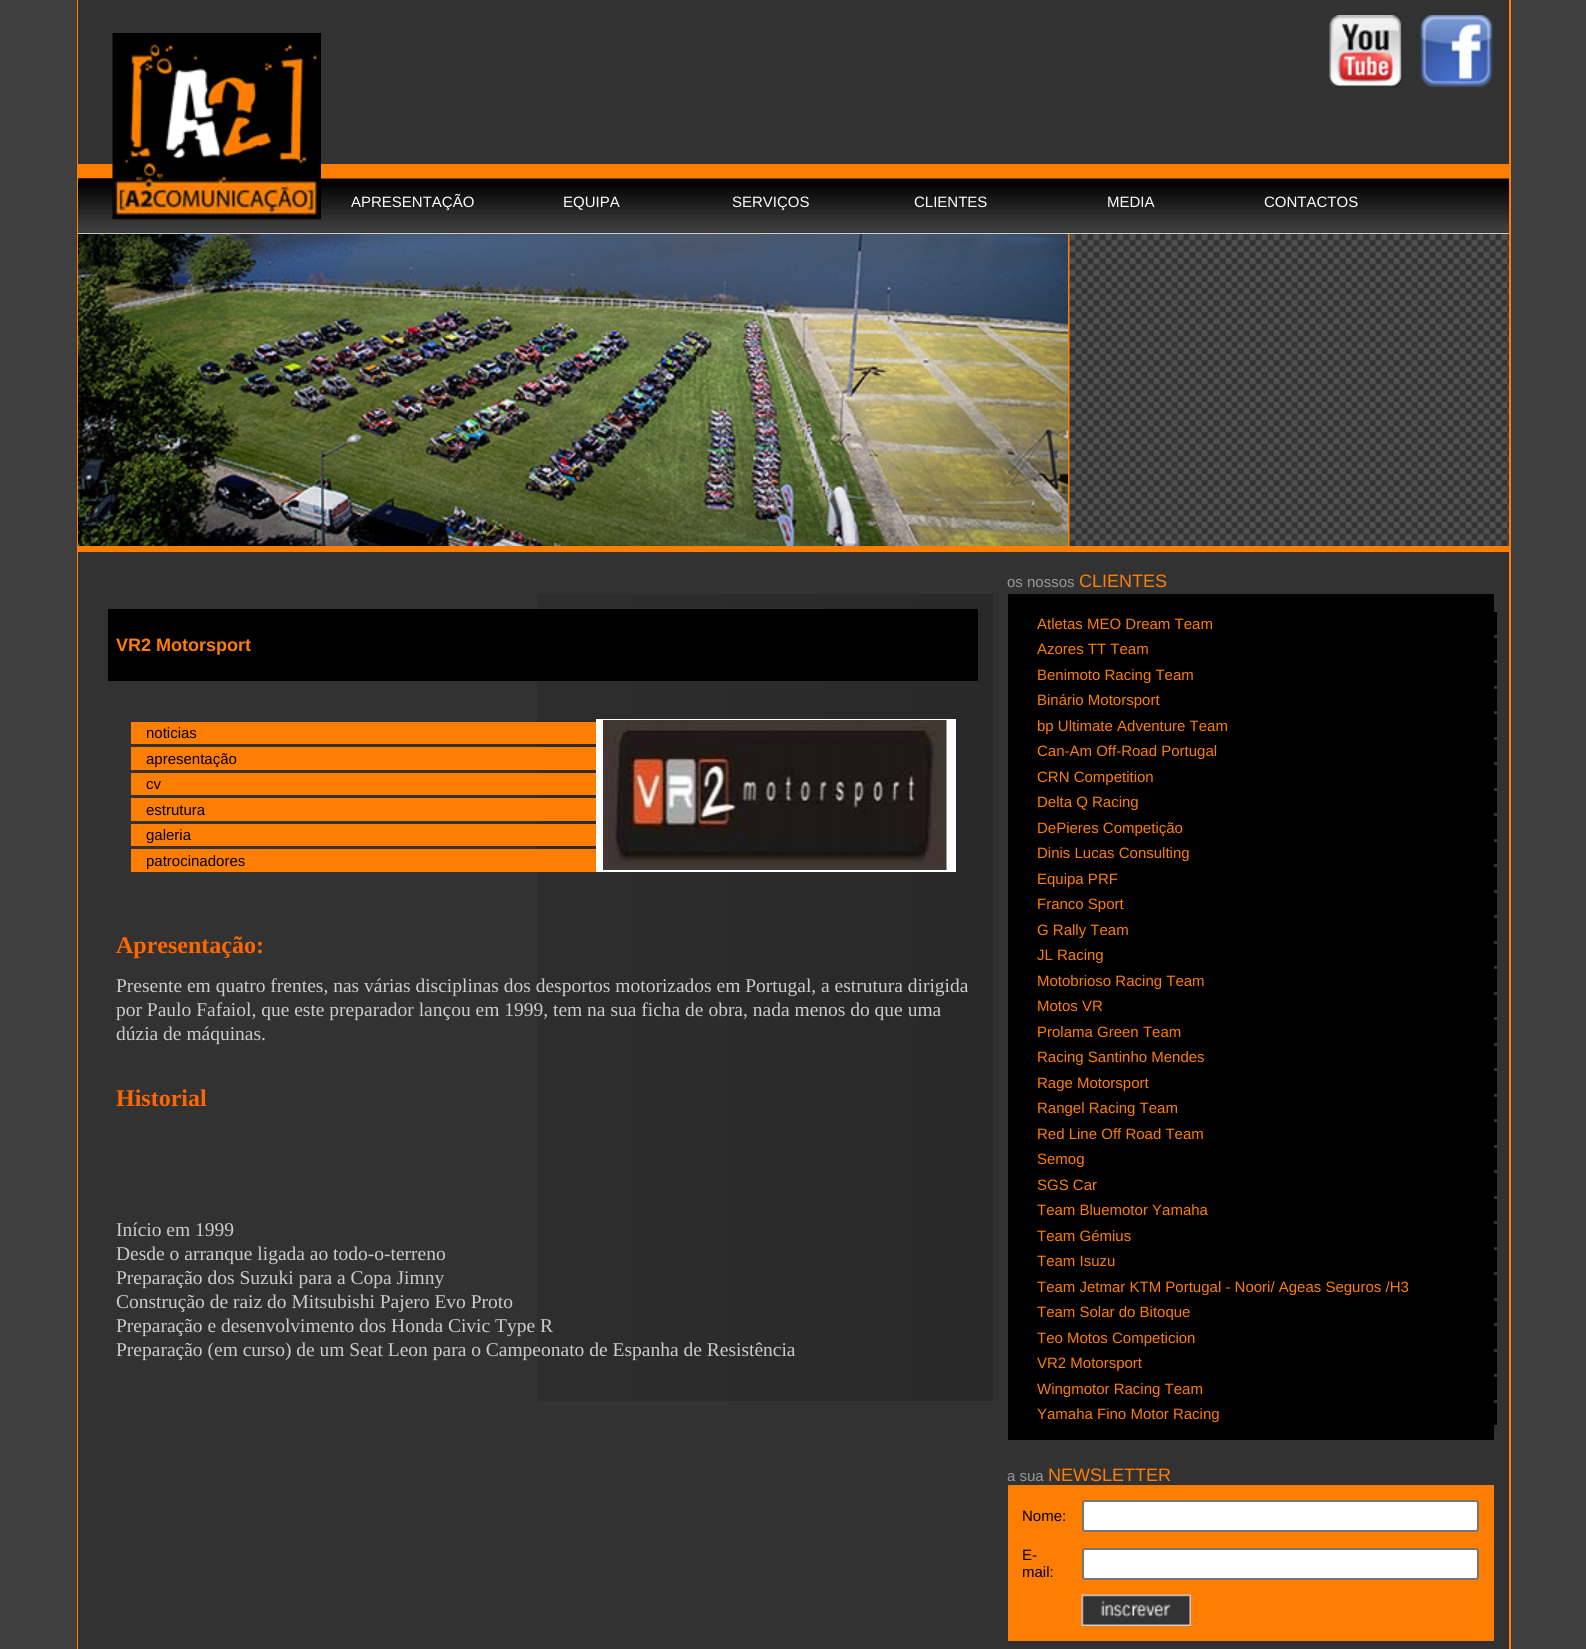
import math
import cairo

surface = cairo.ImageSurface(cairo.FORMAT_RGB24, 1586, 1649)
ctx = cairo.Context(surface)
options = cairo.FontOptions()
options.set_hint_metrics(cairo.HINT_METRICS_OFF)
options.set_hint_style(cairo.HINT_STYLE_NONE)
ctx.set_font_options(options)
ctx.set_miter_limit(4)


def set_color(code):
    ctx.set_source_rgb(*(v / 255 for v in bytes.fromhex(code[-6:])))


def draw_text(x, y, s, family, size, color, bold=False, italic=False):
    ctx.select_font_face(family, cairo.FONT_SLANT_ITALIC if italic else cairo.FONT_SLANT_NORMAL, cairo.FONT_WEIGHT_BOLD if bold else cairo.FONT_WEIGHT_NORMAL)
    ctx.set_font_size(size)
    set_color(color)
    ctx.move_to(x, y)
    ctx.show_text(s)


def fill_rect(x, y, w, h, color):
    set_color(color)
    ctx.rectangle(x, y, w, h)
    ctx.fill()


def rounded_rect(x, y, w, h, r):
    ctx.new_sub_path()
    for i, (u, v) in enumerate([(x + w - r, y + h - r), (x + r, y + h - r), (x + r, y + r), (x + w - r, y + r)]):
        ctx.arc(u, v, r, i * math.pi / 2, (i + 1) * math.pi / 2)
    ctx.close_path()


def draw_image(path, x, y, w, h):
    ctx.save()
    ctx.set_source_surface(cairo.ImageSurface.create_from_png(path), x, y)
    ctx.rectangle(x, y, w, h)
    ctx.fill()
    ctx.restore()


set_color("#3f3f3f")
ctx.paint()
fill_rect(77, 0, 1, 1649, "#fe7e04")
fill_rect(78, 0, 1431, 1649, "#323232")
fill_rect(78, 164, 35, 15, "#fe7e04")
fill_rect(321, 164, 1188, 15, "#fe7e04")
draw_image("assets/img4.png", 78, 178, 1431, 55)
draw_image("assets/img1.png", 112, 33, 209, 146)
draw_image("assets/img2.png", 1329, 15, 74, 73)
draw_image("assets/img3.png", 1420, 15, 73, 73)
draw_image("assets/img5.png", 78, 178, 35, 1)
draw_image("assets/img6.png", 112, 178, 209, 42)
draw_text(351, 207, "APRESENTAÇÃO", "Liberation Sans", 15, "#ffffff")
draw_text(563, 207, "EQUIPA", "Liberation Sans", 15, "#ffffff")
draw_text(732, 207, "SERVIÇOS", "Liberation Sans", 15, "#ffffff")
draw_text(914, 207, "CLIENTES", "Liberation Sans", 15, "#ffffff")
draw_text(1107, 207, "MEDIA", "Liberation Sans", 15, "#ffffff")
draw_text(1264, 207, "CONTACTOS", "Liberation Sans", 15, "#ffffff")
fill_rect(78, 233, 1431, 1, "#cccccc")
draw_image("assets/img7.png", 78, 234, 990, 312)
fill_rect(1068, 234, 2, 312, "#fe7e04")
draw_image("assets/img8.png", 1069, 234, 440, 312)
fill_rect(78, 546, 1431, 6, "#fe7e04")
draw_image("assets/img9.png", 537, 594, 456, 807)
fill_rect(108, 609, 870, 72, "#000000")
draw_text(116, 651, "VR2 Motorsport", "Liberation Sans", 18, "#fe7e04", bold=True)
fill_rect(131, 722, 465, 22, "#fe7e04")
draw_text(146, 738, "noticias", "Liberation Sans", 15, "#000000")
fill_rect(131, 747, 465, 23, "#fe7e04")
draw_text(146, 764, "apresentação", "Liberation Sans", 15, "#000000")
fill_rect(131, 773, 465, 22, "#fe7e04")
draw_text(146, 789, "cv", "Liberation Sans", 15, "#000000")
fill_rect(131, 798, 465, 23, "#fe7e04")
draw_text(146, 815, "estrutura", "Liberation Sans", 15, "#000000")
fill_rect(131, 824, 465, 22, "#fe7e04")
draw_text(146, 840, "galeria", "Liberation Sans", 15, "#000000")
fill_rect(131, 849, 465, 23, "#fe7e04")
draw_text(146, 866, "patrocinadores", "Liberation Sans", 15, "#000000")
fill_rect(596, 719, 360, 153, "#ffffff")
draw_image("assets/img10.png", 603, 720, 344, 150)
draw_text(116, 953, "Apresentação:", "Liberation Serif", 24, "#ff6600", bold=True)
draw_text(116, 992, "Presente em quatro frentes, nas várias disciplinas dos desportos motorizados em Portugal, a estrutura dirigida", "Liberation Serif", 19.5, "#cccccc")
draw_text(116, 1016, "por Paulo Fafaiol, que este preparador lançou em 1999, tem na sua ficha de obra, nada menos do que uma", "Liberation Serif", 19.5, "#cccccc")
draw_text(116, 1040, "dúzia de máquinas.", "Liberation Serif", 19.5, "#cccccc")
draw_text(116, 1106, "Historial", "Liberation Serif", 24, "#ff6600", bold=True)
draw_text(116, 1236, "Início em 1999", "Liberation Serif", 19.5, "#cccccc")
draw_text(116, 1260, "Desde o arranque ligada ao todo-o-terreno", "Liberation Serif", 19.5, "#cccccc")
draw_text(116, 1284, "Preparação dos Suzuki para a Copa Jimny", "Liberation Serif", 19.5, "#cccccc")
draw_text(116, 1308, "Construção de raiz do Mitsubishi Pajero Evo Proto", "Liberation Serif", 19.5, "#cccccc")
draw_text(116, 1332, "Preparação e desenvolvimento dos Honda Civic Type R", "Liberation Serif", 19.5, "#cccccc")
draw_text(116, 1356, "Preparação (em curso) de um Seat Leon para o Campeonato de Espanha de Resistência", "Liberation Serif", 19.5, "#cccccc")
draw_text(1007, 587, "os nossos", "Liberation Sans", 15, "#999999")
draw_text(1079, 587, "CLIENTES", "Liberation Sans", 18, "#fe7e04")
fill_rect(1008, 594, 486, 846, "#000000")
fill_rect(1494, 612, 3, 23, "#000000")
draw_text(1037, 629, "Atletas MEO Dream Team", "Liberation Sans", 15, "#fe7e04")
fill_rect(1494, 638, 3, 22, "#000000")
draw_text(1037, 654, "Azores TT Team", "Liberation Sans", 15, "#fe7e04")
fill_rect(1494, 663, 3, 23, "#000000")
draw_text(1037, 680, "Benimoto Racing Team", "Liberation Sans", 15, "#fe7e04")
fill_rect(1494, 689, 3, 22, "#000000")
draw_text(1037, 705, "Binário Motorsport", "Liberation Sans", 15, "#fe7e04")
fill_rect(1494, 714, 3, 23, "#000000")
draw_text(1037, 731, "bp Ultimate Adventure Team", "Liberation Sans", 15, "#fe7e04")
fill_rect(1494, 740, 3, 22, "#000000")
draw_text(1037, 756, "Can-Am Off-Road Portugal", "Liberation Sans", 15, "#fe7e04")
fill_rect(1494, 765, 3, 23, "#000000")
draw_text(1037, 782, "CRN Competition", "Liberation Sans", 15, "#fe7e04")
fill_rect(1494, 791, 3, 22, "#000000")
draw_text(1037, 807, "Delta Q Racing", "Liberation Sans", 15, "#fe7e04")
fill_rect(1494, 816, 3, 23, "#000000")
draw_text(1037, 833, "DePieres Competição", "Liberation Sans", 15, "#fe7e04")
fill_rect(1494, 842, 3, 22, "#000000")
draw_text(1037, 858, "Dinis Lucas Consulting", "Liberation Sans", 15, "#fe7e04")
fill_rect(1494, 867, 3, 23, "#000000")
draw_text(1037, 884, "Equipa PRF", "Liberation Sans", 15, "#fe7e04")
fill_rect(1494, 893, 3, 22, "#000000")
draw_text(1037, 909, "Franco Sport", "Liberation Sans", 15, "#fe7e04")
fill_rect(1494, 918, 3, 23, "#000000")
draw_text(1037, 935, "G Rally Team", "Liberation Sans", 15, "#fe7e04")
fill_rect(1494, 944, 3, 22, "#000000")
draw_text(1037, 960, "JL Racing", "Liberation Sans", 15, "#fe7e04")
fill_rect(1494, 969, 3, 23, "#000000")
draw_text(1037, 986, "Motobrioso Racing Team", "Liberation Sans", 15, "#fe7e04")
fill_rect(1494, 995, 3, 22, "#000000")
draw_text(1037, 1011, "Motos VR", "Liberation Sans", 15, "#fe7e04")
fill_rect(1494, 1020, 3, 23, "#000000")
draw_text(1037, 1037, "Prolama Green Team", "Liberation Sans", 15, "#fe7e04")
fill_rect(1494, 1046, 3, 22, "#000000")
draw_text(1037, 1062, "Racing Santinho Mendes", "Liberation Sans", 15, "#fe7e04")
fill_rect(1494, 1071, 3, 23, "#000000")
draw_text(1037, 1088, "Rage Motorsport", "Liberation Sans", 15, "#fe7e04")
fill_rect(1494, 1097, 3, 22, "#000000")
draw_text(1037, 1113, "Rangel Racing Team", "Liberation Sans", 15, "#fe7e04")
fill_rect(1494, 1122, 3, 23, "#000000")
draw_text(1037, 1139, "Red Line Off Road Team", "Liberation Sans", 15, "#fe7e04")
fill_rect(1494, 1148, 3, 22, "#000000")
draw_text(1037, 1164, "Semog", "Liberation Sans", 15, "#fe7e04")
fill_rect(1494, 1173, 3, 23, "#000000")
draw_text(1037, 1190, "SGS Car", "Liberation Sans", 15, "#fe7e04")
fill_rect(1494, 1199, 3, 22, "#000000")
draw_text(1037, 1215, "Team Bluemotor Yamaha", "Liberation Sans", 15, "#fe7e04")
fill_rect(1494, 1224, 3, 23, "#000000")
draw_text(1037, 1241, "Team Gémius", "Liberation Sans", 15, "#fe7e04")
fill_rect(1494, 1250, 3, 22, "#000000")
draw_text(1037, 1266, "Team Isuzu", "Liberation Sans", 15, "#fe7e04")
fill_rect(1494, 1275, 3, 23, "#000000")
draw_text(1037, 1292, "Team Jetmar KTM Portugal - Noori/ Ageas Seguros /H3", "Liberation Sans", 15, "#fe7e04")
fill_rect(1494, 1301, 3, 22, "#000000")
draw_text(1037, 1317, "Team Solar do Bitoque", "Liberation Sans", 15, "#fe7e04")
fill_rect(1494, 1326, 3, 23, "#000000")
draw_text(1037, 1343, "Teo Motos Competicion", "Liberation Sans", 15, "#fe7e04")
fill_rect(1494, 1352, 3, 22, "#000000")
draw_text(1037, 1368, "VR2 Motorsport", "Liberation Sans", 15, "#fe7e04")
fill_rect(1494, 1377, 3, 23, "#000000")
draw_text(1037, 1394, "Wingmotor Racing Team", "Liberation Sans", 15, "#fe7e04")
fill_rect(1494, 1403, 3, 22, "#000000")
draw_text(1037, 1419, "Yamaha Fino Motor Racing", "Liberation Sans", 15, "#fe7e04")
draw_text(1007, 1481, "a sua", "Liberation Sans", 15, "#999999")
draw_text(1048, 1481, "NEWSLETTER", "Liberation Sans", 18, "#fe7e04")
fill_rect(1008, 1485, 486, 156, "#fe7e04")
draw_text(1022, 1521, "Nome:", "Liberation Sans", 15, "#000000")
set_color("#ffffff")
rounded_rect(1083, 1501, 395, 30, 2)
ctx.fill_preserve()
set_color("#767676")
ctx.stroke()
draw_text(1022, 1560, "E-", "Liberation Sans", 15, "#000000")
draw_text(1022, 1577, "mail:", "Liberation Sans", 15, "#000000")
set_color("#ffffff")
rounded_rect(1083, 1549, 395, 30, 2)
ctx.fill_preserve()
set_color("#767676")
ctx.stroke()
draw_image("assets/img11.png", 1081, 1594, 110, 32)
fill_rect(1509, 0, 2, 1649, "#fe7e04")
surface.write_to_png("output.png")
